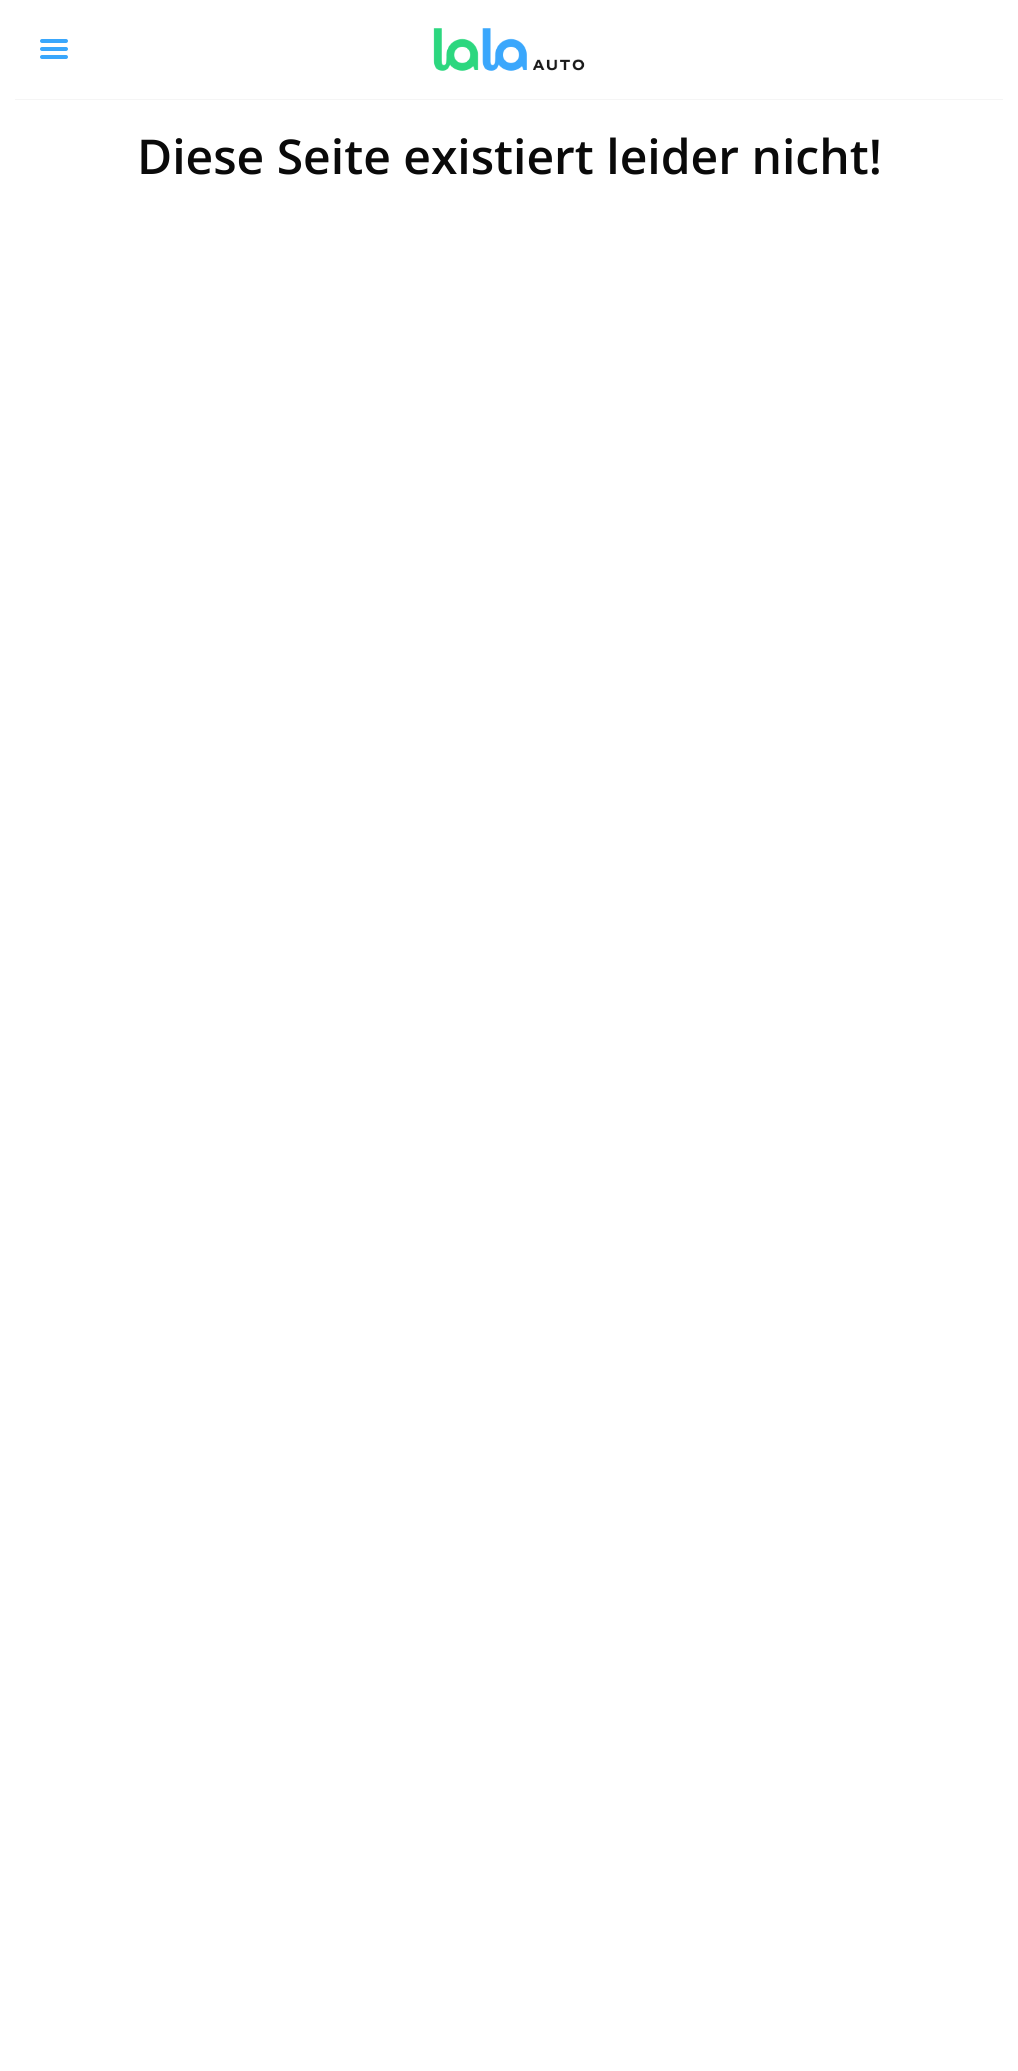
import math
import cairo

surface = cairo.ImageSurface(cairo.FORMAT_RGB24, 1018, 2071)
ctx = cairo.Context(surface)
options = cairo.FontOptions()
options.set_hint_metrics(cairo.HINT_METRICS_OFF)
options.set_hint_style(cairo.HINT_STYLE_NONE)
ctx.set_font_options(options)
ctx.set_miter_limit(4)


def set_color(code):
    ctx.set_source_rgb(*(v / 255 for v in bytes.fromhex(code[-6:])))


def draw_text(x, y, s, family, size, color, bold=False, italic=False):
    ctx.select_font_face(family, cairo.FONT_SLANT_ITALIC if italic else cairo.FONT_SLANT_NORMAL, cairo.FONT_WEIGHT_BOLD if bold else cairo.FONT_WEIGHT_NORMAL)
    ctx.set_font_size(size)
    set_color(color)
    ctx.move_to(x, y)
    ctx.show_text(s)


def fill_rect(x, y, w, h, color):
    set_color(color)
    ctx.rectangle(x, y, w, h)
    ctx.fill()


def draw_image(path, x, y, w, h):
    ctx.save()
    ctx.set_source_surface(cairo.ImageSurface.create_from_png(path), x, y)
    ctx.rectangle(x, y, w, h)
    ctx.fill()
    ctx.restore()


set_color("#ffffff")
ctx.paint()
fill_rect(15, 99, 988, 1, "#f5f5f5")
draw_image("assets/img1.png", 40, 39, 28, 20)
draw_image("assets/img2.png", 433, 28, 152, 43)
draw_text(137, 174, "Diese Seite existiert leider nicht!", "Open Sans SemiBold", 48, "#0a0a0a")
surface.write_to_png("output.png")
